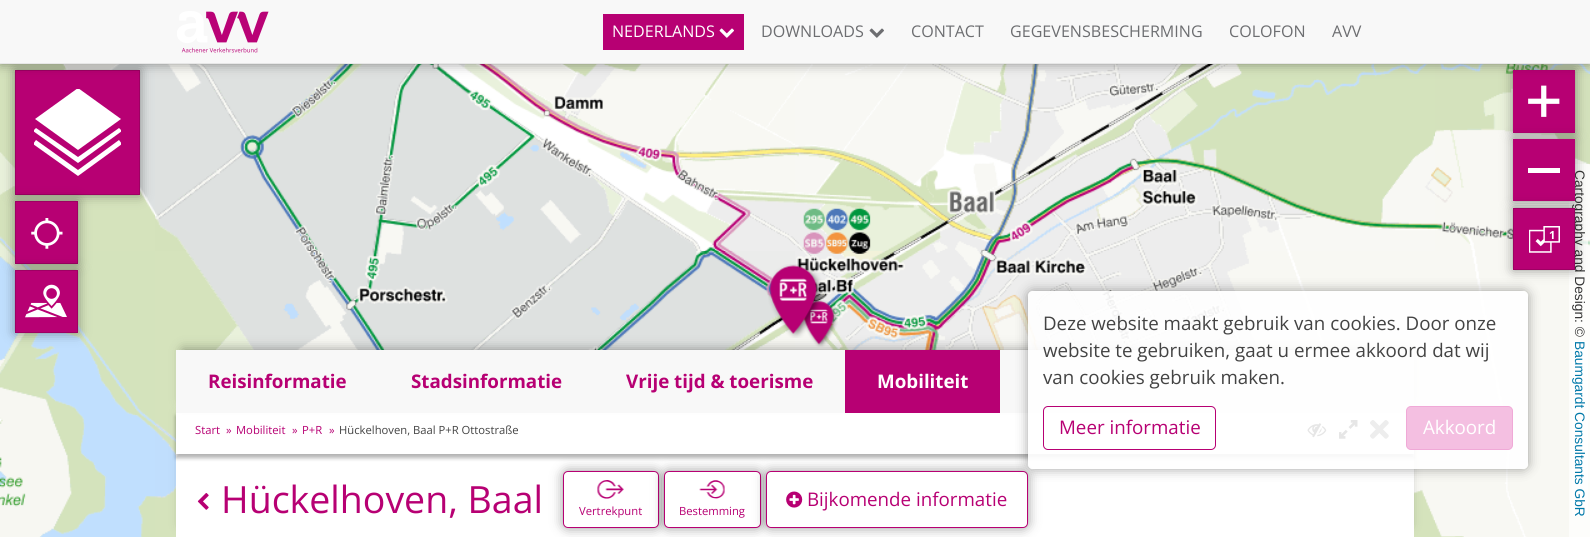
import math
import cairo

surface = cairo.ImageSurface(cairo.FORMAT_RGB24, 1590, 537)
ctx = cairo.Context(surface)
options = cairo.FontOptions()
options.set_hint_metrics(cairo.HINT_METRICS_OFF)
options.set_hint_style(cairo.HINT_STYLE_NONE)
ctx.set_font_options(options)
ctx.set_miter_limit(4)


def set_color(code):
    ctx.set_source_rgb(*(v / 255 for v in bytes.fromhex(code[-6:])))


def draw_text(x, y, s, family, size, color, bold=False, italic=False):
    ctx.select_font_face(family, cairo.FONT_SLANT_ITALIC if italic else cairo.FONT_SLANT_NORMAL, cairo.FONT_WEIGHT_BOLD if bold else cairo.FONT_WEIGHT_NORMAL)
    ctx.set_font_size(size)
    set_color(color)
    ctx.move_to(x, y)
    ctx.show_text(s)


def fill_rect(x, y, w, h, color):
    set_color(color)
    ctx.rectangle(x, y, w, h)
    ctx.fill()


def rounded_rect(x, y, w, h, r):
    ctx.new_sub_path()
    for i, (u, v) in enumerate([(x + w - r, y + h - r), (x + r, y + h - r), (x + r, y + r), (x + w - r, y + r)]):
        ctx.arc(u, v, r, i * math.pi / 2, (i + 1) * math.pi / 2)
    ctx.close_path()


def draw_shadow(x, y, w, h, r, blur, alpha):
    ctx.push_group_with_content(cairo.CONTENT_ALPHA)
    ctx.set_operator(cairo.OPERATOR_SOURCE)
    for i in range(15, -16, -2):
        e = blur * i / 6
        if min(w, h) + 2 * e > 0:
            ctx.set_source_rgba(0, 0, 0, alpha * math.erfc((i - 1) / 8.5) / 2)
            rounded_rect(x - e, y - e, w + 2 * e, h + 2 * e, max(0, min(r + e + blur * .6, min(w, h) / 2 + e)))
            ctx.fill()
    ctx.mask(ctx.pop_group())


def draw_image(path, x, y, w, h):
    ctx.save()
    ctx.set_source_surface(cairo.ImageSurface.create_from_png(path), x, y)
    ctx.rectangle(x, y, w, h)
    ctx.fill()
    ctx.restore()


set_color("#ffffff")
ctx.paint()
draw_image("assets/img8.png", 0, 64, 155, 187)
draw_image("assets/img9.png", 155, 64, 320, 187)
set_color("#000000")
draw_shadow(15, 70, 125, 125, 0, 6, 0.4)
set_color("#b70073")
ctx.rectangle(15.5, 70.5, 124, 124)
ctx.fill_preserve()
set_color("#9e0063")
ctx.set_line_width(1)
ctx.stroke()
draw_image("assets/img13.png", 1435, 64, 155, 187)
set_color("#000000")
draw_shadow(1513, 70, 62, 63, 0, 6, 0.4)
fill_rect(1513, 70, 62, 63, "#b70073")
draw_image("assets/img10.png", 475, 64, 320, 187)
draw_image("assets/img11.png", 795, 64, 320, 187)
draw_image("assets/img12.png", 1115, 64, 320, 187)
set_color("#000000")
draw_shadow(0, 0, 1590, 64, 0, 6, 0.4)
fill_rect(0, 0, 1590, 63, "#f8f8f8")
fill_rect(0, 63, 1590, 1, "#e7e7e7")
draw_image("assets/img1.png", 177, 11, 92, 42)
fill_rect(603, 14, 141, 36, "#b70073")
draw_text(612, 37, "NEDERLANDS", "Open Sans", 16.1, "#ffffff")
draw_image("assets/img2.png", 719, 28, 15, 10)
draw_text(761, 37, "DOWNLOADS", "Open Sans", 16.1, "#6d6e71")
draw_image("assets/img3.png", 869, 28, 15, 10)
draw_text(911, 37, "CONTACT", "Open Sans", 16.1, "#6d6e71")
draw_text(1010, 37, "GEGEVENSBESCHERMING", "Open Sans", 16.1, "#6d6e71")
draw_text(1229, 37, "COLOFON", "Open Sans", 16.1, "#6d6e71")
draw_text(1332, 37, "AVV", "Open Sans", 16.1, "#6d6e71")
ctx.save()
ctx.rectangle(34, 89, 87, 87)
ctx.clip()
set_color("#ffffff")
ctx.new_path()
ctx.move_to(78, 150)
ctx.line_to(35, 119)
ctx.line_to(78, 88)
ctx.line_to(121, 119)
ctx.close_path()
ctx.fill()
ctx.new_path()
ctx.move_to(78, 176)
ctx.line_to(33, 144)
ctx.line_to(36, 140)
ctx.line_to(78, 170)
ctx.line_to(119, 140)
ctx.line_to(122, 144)
ctx.close_path()
ctx.fill()
ctx.new_path()
ctx.move_to(78, 163)
ctx.line_to(33, 131)
ctx.line_to(36, 128)
ctx.line_to(78, 157)
ctx.line_to(119, 128)
ctx.line_to(122, 131)
ctx.close_path()
ctx.fill()
ctx.restore()
draw_image("assets/img14.png", 0, 251, 155, 286)
set_color("#000000")
draw_shadow(15, 201, 63, 63, 0, 6, 0.4)
fill_rect(16, 202, 61, 61, "#b70073")
draw_image("assets/img4.png", 31, 218, 32, 31)
ctx.rectangle(15.5, 201.5, 62, 62)
set_color("#9e0063")
ctx.stroke()
set_color("#000000")
draw_shadow(15, 270, 63, 63, 0, 6, 0.4)
set_color("#b70073")
ctx.rectangle(15.5, 270.5, 62, 62)
ctx.fill_preserve()
set_color("#9e0063")
ctx.stroke()
draw_image("assets/img5.png", 25, 284, 42, 34)
draw_image("assets/img6.png", 1528, 85, 32, 32)
draw_image("assets/img19.png", 1435, 251, 155, 286)
ctx.set_source_rgba(1, 1, 1, 0.7)
ctx.rectangle(1569, 164, 21, 373)
ctx.fill()
set_color("#000000")
draw_shadow(1513, 139, 62, 62, 0, 6, 0.4)
ctx.set_source_rgba(1, 1, 1, 0.7)
ctx.rectangle(1572, 237, 16, 9)
ctx.fill()
ctx.save()
ctx.translate(1575, 170)
ctx.rotate(90 * math.pi / 180)
draw_text(0, 0, "Cartography and Design: ©", "Liberation Sans", 13.75, "#333333")
ctx.restore()
fill_rect(1513, 139, 62, 62, "#b70073")
fill_rect(1528, 168, 32, 5, "#ffffff")
set_color("#000000")
draw_shadow(1513, 208, 62, 62, 0, 6, 0.4)
fill_rect(1514, 209, 60, 60, "#b70073")
draw_image("assets/img7.png", 1529, 226, 31, 27)
ctx.rectangle(1513.5, 208.5, 61, 61)
set_color("#9e0063")
ctx.stroke()
draw_text(1549, 239, "1", "Open Sans", 11.25, "#ffffff", bold=True)
draw_image("assets/img15.png", 155, 251, 320, 286)
draw_image("assets/img16.png", 475, 251, 320, 99)
draw_image("assets/img17.png", 795, 251, 320, 99)
draw_image("assets/img18.png", 1115, 251, 320, 286)
draw_image("assets/img21.png", 803, 300, 35, 47)
draw_image("assets/img20.png", 768, 264, 56, 74)
fill_rect(1572, 341, 16, 175, "#fefefe")
ctx.save()
ctx.translate(1575, 341)
ctx.rotate(90 * math.pi / 180)
draw_text(0, 0, "Baumgardt Consultants GbR", "Liberation Sans", 13.75, "#0078a8")
ctx.restore()
ctx.set_source_rgba(1, 1, 1, 0.7)
ctx.rectangle(1575, 516, 1, 1)
ctx.fill()
set_color("#000000")
draw_shadow(183, 413, 1225, 112, 0, 6, 0.4)
fill_rect(176, 454, 1238, 83, "#ffffff")
set_color("#000000")
draw_shadow(176, 416, 1238, 42, 0, 2, 0.3)
fill_rect(176, 413, 1238, 41, "#ffffff")
set_color("#000000")
draw_shadow(183, 350, 1225, 50, 0, 6, 0.4)
fill_rect(176, 350, 669, 63, "#f8f8f8")
draw_text(208, 388, "Reisinformatie", "Open Sans", 18.75, "#b70073", bold=True)
draw_text(411, 388, "Stadsinformatie", "Open Sans", 18.75, "#b70073", bold=True)
draw_text(626, 388, "Vrije tijd & toerisme", "Open Sans", 18.75, "#b70073", bold=True)
fill_rect(845, 350, 155, 63, "#b70073")
draw_text(877, 388, "Mobiliteit", "Open Sans", 18.75, "#ffffff", bold=True)
fill_rect(1000, 350, 414, 63, "#f8f8f8")
draw_text(195, 434, "Start", "Open Sans", 11.25, "#b70073")
draw_text(226, 434, "»", "Open Sans", 11.25, "#b70073")
draw_text(236, 434, "Mobiliteit", "Open Sans", 11.25, "#b70073")
draw_text(292, 434, "»", "Open Sans", 11.25, "#b70073")
draw_text(302, 434, "P+R", "Open Sans", 11.25, "#b70073")
draw_text(329, 434, "»", "Open Sans", 11.25, "#b70073")
draw_text(339, 434, "Hückelhoven, Baal P+R Ottostraße", "Open Sans", 11.25, "#434343")
draw_image("assets/img22.png", 197, 493, 12, 17)
draw_text(221, 513, "Hückelhoven, Baal", "Open Sans", 37.5, "#b70073")
set_color("#000000")
draw_shadow(563, 471, 96, 57, 5, 6, 0.4)
set_color("#ffffff")
rounded_rect(563.5, 471.5, 95, 56, 4.5)
ctx.fill_preserve()
set_color("#b70073")
ctx.stroke()
draw_image("assets/img23.png", 597, 480, 27, 19)
draw_text(579, 515, "Vertrekpunt", "Open Sans", 11.25, "#b70073")
set_color("#000000")
draw_shadow(664, 471, 97, 57, 5, 6, 0.4)
set_color("#ffffff")
rounded_rect(664.5, 471.5, 96, 56, 4.5)
ctx.fill_preserve()
set_color("#b70073")
ctx.stroke()
draw_image("assets/img24.png", 699, 480, 26, 19)
draw_text(679, 515, "Bestemming", "Open Sans", 11.25, "#b70073")
set_color("#000000")
draw_shadow(766, 471, 262, 57, 5, 6, 0.4)
set_color("#ffffff")
rounded_rect(766.5, 471.5, 261, 56, 4.5)
ctx.fill_preserve()
set_color("#b70073")
ctx.stroke()
draw_image("assets/img25.png", 786, 491, 17, 17)
draw_text(807, 506, "Bijkomende informatie", "Open Sans", 18.75, "#b70073")
draw_image("assets/img26.png", 1307, 423, 20, 15)
draw_image("assets/img27.png", 1339, 420, 19, 19)
draw_image("assets/img28.png", 1370, 420, 19, 19)
ctx.save()
ctx.set_fill_rule(cairo.FILL_RULE_EVEN_ODD)
ctx.new_path()
ctx.move_to(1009, 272)
ctx.line_to(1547, 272)
ctx.line_to(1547, 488)
ctx.line_to(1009, 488)
ctx.close_path()
ctx.move_to(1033, 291)
ctx.line_to(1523, 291)
ctx.curve_to(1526, 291, 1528, 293, 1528, 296)
ctx.line_to(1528, 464)
ctx.curve_to(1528, 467, 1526, 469, 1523, 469)
ctx.line_to(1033, 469)
ctx.curve_to(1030, 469, 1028, 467, 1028, 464)
ctx.line_to(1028, 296)
ctx.curve_to(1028, 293, 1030, 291, 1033, 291)
ctx.close_path()
ctx.clip()
set_color("#000000")
draw_shadow(1028, 291, 500, 178, 5, 6, 0.36)
ctx.restore()
ctx.set_source_rgba(1, 1, 1, 0.9)
rounded_rect(1028, 291, 500, 178, 5)
ctx.fill()
draw_text(1043, 330, "Deze website maakt gebruik van cookies. Door onze", "Open Sans", 18.75, "#434343")
draw_text(1043, 357, "website te gebruiken, gaat u ermee akkoord dat wij", "Open Sans", 18.75, "#434343")
draw_text(1043, 384, "van cookies gebruik maken.", "Open Sans", 18.75, "#434343")
rounded_rect(1043.5, 406.5, 172, 43, 4.5)
set_color("#b70073")
ctx.stroke()
draw_text(1059, 434, "Meer informatie", "Open Sans", 18.75, "#b70073")
set_color("#f4bfe1")
rounded_rect(1406.5, 406.5, 106, 43, 4.5)
ctx.fill_preserve()
set_color("#f0a9d7")
ctx.stroke()
draw_text(1423, 434, "Akkoord", "Open Sans", 18.75, "#ffffff")
surface.write_to_png("output.png")
